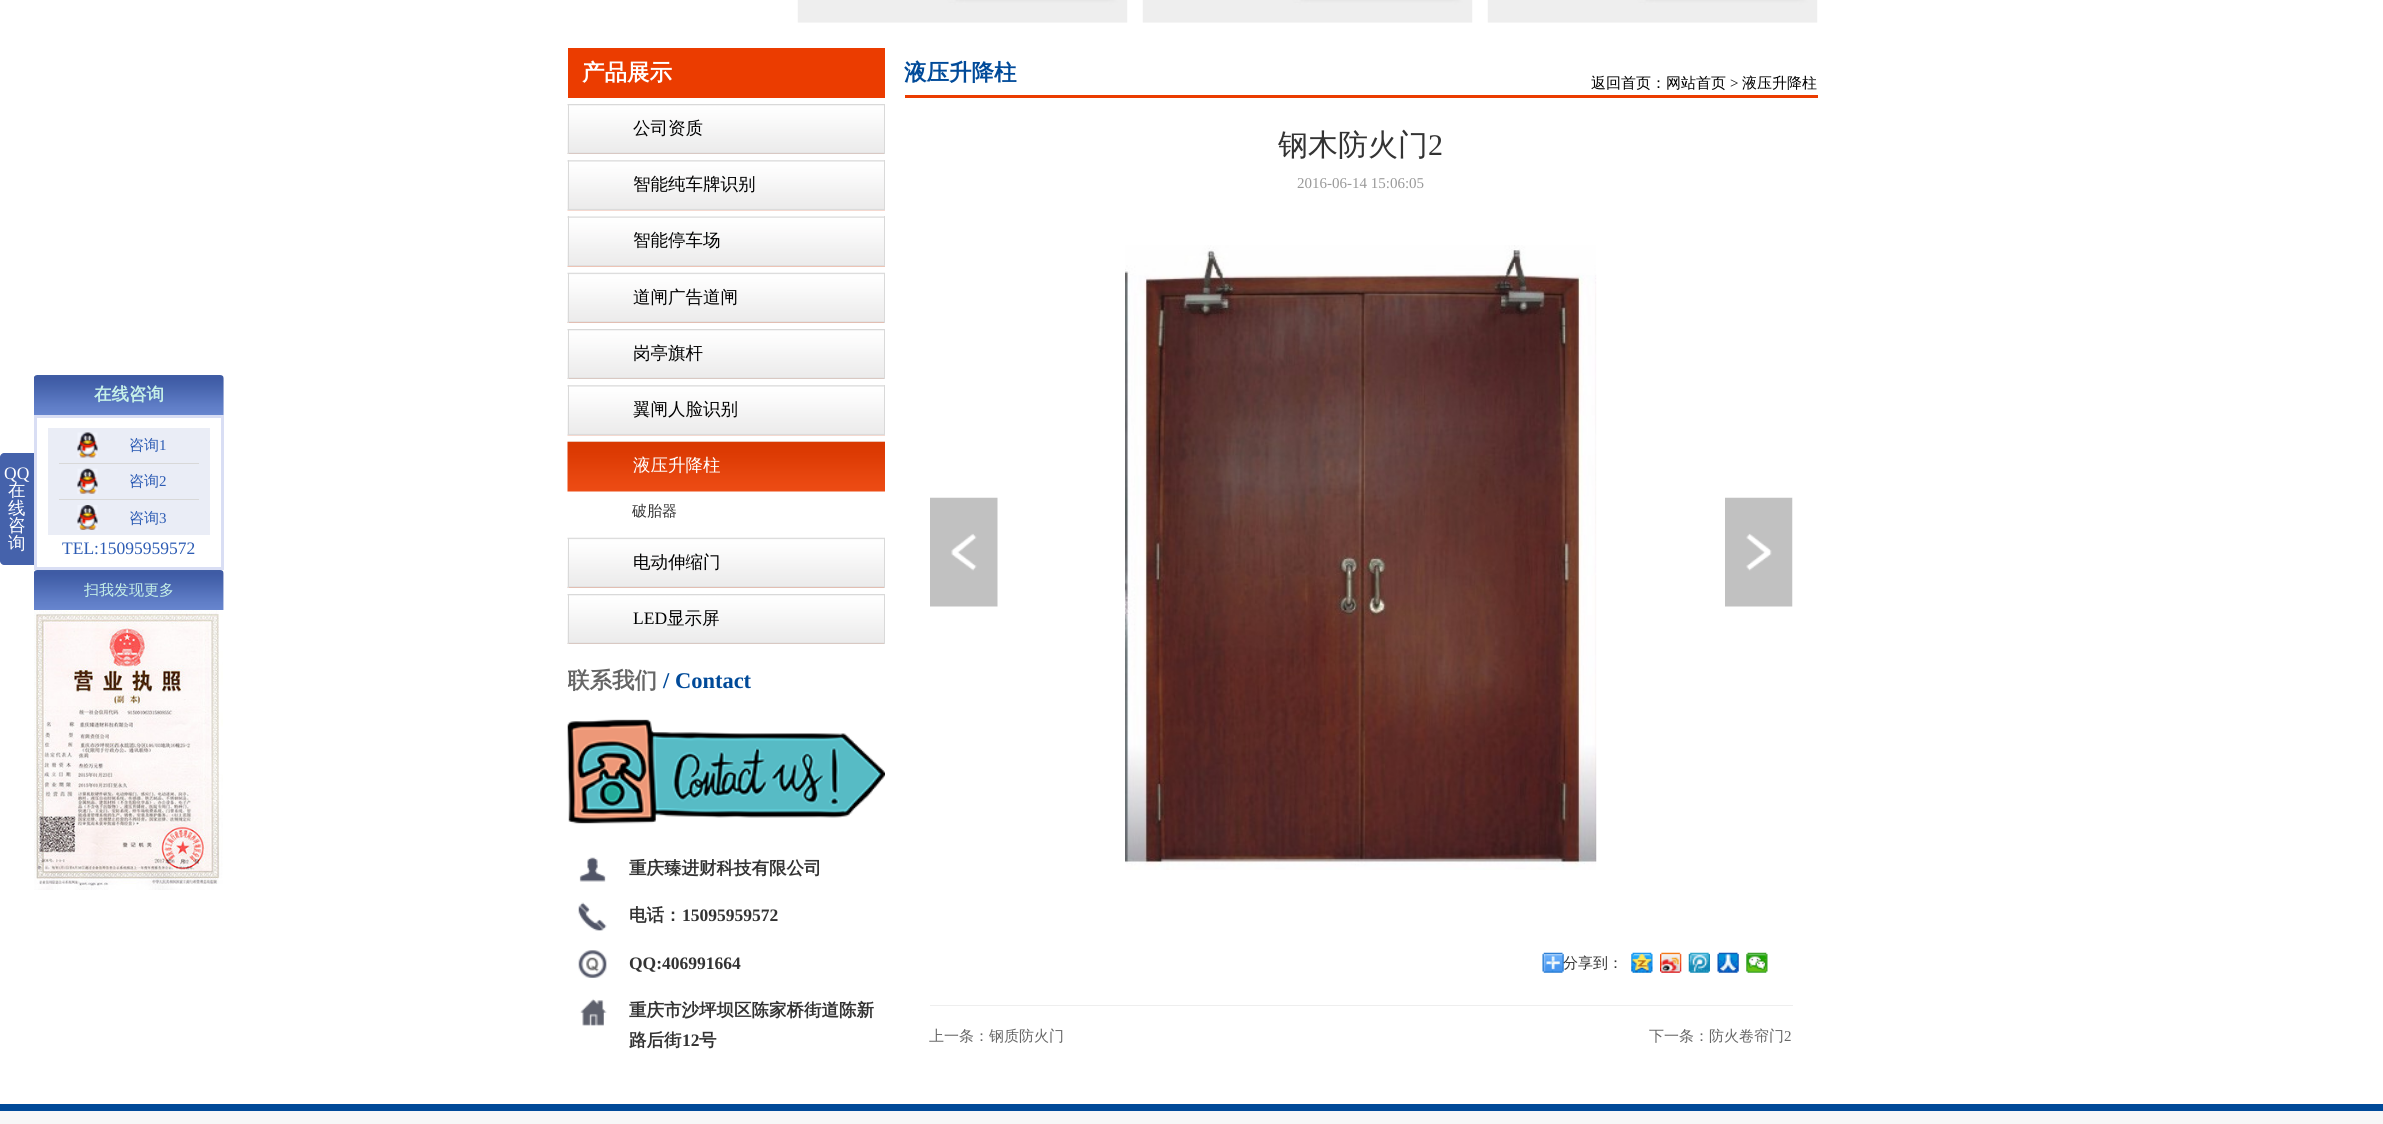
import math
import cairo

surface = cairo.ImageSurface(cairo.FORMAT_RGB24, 2383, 1124)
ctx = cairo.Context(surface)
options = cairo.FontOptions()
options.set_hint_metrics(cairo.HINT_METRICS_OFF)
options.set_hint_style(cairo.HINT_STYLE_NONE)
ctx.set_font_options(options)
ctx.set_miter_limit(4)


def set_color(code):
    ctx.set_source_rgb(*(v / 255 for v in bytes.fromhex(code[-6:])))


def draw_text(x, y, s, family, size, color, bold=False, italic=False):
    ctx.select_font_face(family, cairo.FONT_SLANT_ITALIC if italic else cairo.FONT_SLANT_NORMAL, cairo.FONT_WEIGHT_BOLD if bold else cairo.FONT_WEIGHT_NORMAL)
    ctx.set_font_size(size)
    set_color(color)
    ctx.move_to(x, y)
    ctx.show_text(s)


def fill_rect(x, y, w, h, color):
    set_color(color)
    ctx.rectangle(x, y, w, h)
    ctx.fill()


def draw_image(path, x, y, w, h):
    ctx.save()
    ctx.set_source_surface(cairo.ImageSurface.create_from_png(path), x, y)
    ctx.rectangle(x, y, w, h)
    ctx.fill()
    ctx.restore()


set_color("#ffffff")
ctx.paint()
set_color("#4562ab")
ctx.new_path()
ctx.move_to(4, 453)
ctx.line_to(34, 453)
ctx.line_to(34, 565)
ctx.line_to(4, 565)
ctx.curve_to(2, 565, 0, 563, 0, 561)
ctx.line_to(0, 457)
ctx.curve_to(0, 455, 2, 453, 4, 453)
ctx.close_path()
ctx.fill()
draw_text(4, 479, "QQ", "Liberation Serif", 17.5, "#ffffff")
draw_text(8, 496, "在", "WenQuanYi Zen Hei Medium", 17.5, "#ffffff")
draw_text(8, 514, "线", "WenQuanYi Zen Hei Medium", 17.5, "#ffffff")
draw_text(8, 531, "咨", "WenQuanYi Zen Hei Medium", 17.5, "#ffffff")
draw_text(8, 549, "询", "WenQuanYi Zen Hei Medium", 17.5, "#ffffff")
draw_image("assets/img1.png", 34, 375, 190, 40)
draw_text(94, 400, "在线咨询", "WenQuanYi Zen Hei", 17.5, "#c6f1e8", bold=True)
ctx.rectangle(35.5, 416.5, 187, 152)
set_color("#d9def4")
ctx.set_line_width(3)
ctx.stroke()
fill_rect(48, 428, 162, 107, "#eaedf6")
draw_image("assets/img2.png", 77, 432, 21, 26)
draw_text(129, 450, "咨询", "WenQuanYi Zen Hei Medium", 15, "#2d5cb4")
draw_text(159, 450, "1", "Liberation Serif", 15, "#2d5cb4")
fill_rect(59, 463, 140, 1, "#d8d8d8")
draw_image("assets/img3.png", 77, 468, 21, 26)
draw_text(129, 486, "咨询", "WenQuanYi Zen Hei Medium", 15, "#2d5cb4")
draw_text(159, 486, "2", "Liberation Serif", 15, "#2d5cb4")
fill_rect(59, 499, 140, 1, "#d8d8d8")
draw_image("assets/img4.png", 77, 505, 21, 25)
draw_text(129, 523, "咨询", "WenQuanYi Zen Hei Medium", 15, "#2d5cb4")
draw_text(159, 523, "3", "Liberation Serif", 15, "#2d5cb4")
draw_text(62, 554, "TEL:15095959572", "Liberation Serif", 17.5, "#2d5cb4")
draw_image("assets/img5.png", 34, 570, 190, 40)
draw_text(84, 595, "扫我发现更多", "WenQuanYi Zen Hei Medium", 15, "#c6f1e8")
draw_image("assets/img6.png", 34, 610, 189, 280)
draw_image("assets/img7.png", 797, 0, 331, 23)
draw_image("assets/img8.png", 1142, 0, 331, 23)
draw_image("assets/img8.png", 1487, 0, 331, 23)
fill_rect(568, 48, 317, 50, "#eb3c00")
draw_text(582, 80, "产品展示", "WenQuanYi Zen Hei", 22.5, "#ffffff", bold=True)
draw_image("assets/img9.png", 567, 104, 317, 50)
fill_rect(884, 104, 1, 50, "#d9d9d9")
fill_rect(568, 104, 1, 50, "#d9d9d9")
draw_text(633, 134, "公司资质", "WenQuanYi Zen Hei Medium", 17.5, "#000000")
draw_image("assets/img10.png", 567, 160, 318, 51)
fill_rect(884, 160, 1, 50, "#d9d9d9")
fill_rect(568, 160, 1, 50, "#d9d9d9")
draw_text(633, 190, "智能纯车牌识别", "WenQuanYi Zen Hei Medium", 17.5, "#000000")
draw_image("assets/img11.png", 567, 216, 318, 51)
fill_rect(884, 216, 1, 50, "#d9d9d9")
fill_rect(568, 216, 1, 50, "#d9d9d9")
draw_text(633, 246, "智能停车场", "WenQuanYi Zen Hei Medium", 17.5, "#000000")
draw_image("assets/img12.png", 567, 272, 318, 51)
fill_rect(884, 273, 1, 50, "#d9d9d9")
fill_rect(568, 273, 1, 50, "#d9d9d9")
draw_text(633, 303, "道闸广告道闸", "WenQuanYi Zen Hei Medium", 17.5, "#000000")
draw_image("assets/img13.png", 567, 329, 317, 50)
fill_rect(884, 329, 1, 50, "#d9d9d9")
fill_rect(568, 329, 1, 50, "#d9d9d9")
draw_text(633, 359, "岗亭旗杆", "WenQuanYi Zen Hei Medium", 17.5, "#000000")
draw_image("assets/img10.png", 567, 385, 318, 51)
fill_rect(884, 385, 1, 50, "#d9d9d9")
fill_rect(568, 385, 1, 50, "#d9d9d9")
draw_text(633, 415, "翼闸人脸识别", "WenQuanYi Zen Hei Medium", 17.5, "#000000")
draw_image("assets/img14.png", 567, 441, 318, 51)
draw_text(633, 471, "液压升降柱", "WenQuanYi Zen Hei Medium", 17.5, "#ffffff")
draw_text(632, 516, "破胎器", "WenQuanYi Zen Hei Medium", 15, "#333333")
draw_image("assets/img12.png", 567, 537, 318, 51)
fill_rect(884, 538, 1, 50, "#d9d9d9")
fill_rect(568, 538, 1, 50, "#d9d9d9")
draw_text(633, 568, "电动伸缩门", "WenQuanYi Zen Hei Medium", 17.5, "#000000")
draw_image("assets/img15.png", 567, 594, 317, 50)
fill_rect(884, 594, 1, 50, "#d9d9d9")
fill_rect(568, 594, 1, 50, "#d9d9d9")
draw_text(633, 624, "LED", "Liberation Serif", 17.5, "#000000")
draw_text(667, 624, "显示屏", "WenQuanYi Zen Hei Medium", 17.5, "#000000")
ctx.save()
ctx.rectangle(568, 654, 317, 52)
ctx.clip()
draw_text(567, 688, "联系我们", "WenQuanYi Zen Hei", 22.5, "#666666", bold=True)
ctx.restore()
draw_text(663, 688, "/ Contact", "Liberation Serif", 22.5, "#004a99", bold=True)
draw_image("assets/img16.png", 567, 719, 318, 105)
draw_image("assets/img17.png", 579, 857, 27, 25)
draw_text(629, 874, "重庆臻进财科技有限公司", "WenQuanYi Zen Hei", 17.5, "#333333", bold=True)
draw_image("assets/img18.png", 578, 902, 29, 29)
draw_text(629, 921, "电话：", "WenQuanYi Zen Hei", 17.5, "#333333", bold=True)
draw_text(682, 921, "15095959572", "Liberation Serif", 17.5, "#333333", bold=True)
draw_image("assets/img19.png", 578, 950, 29, 28)
draw_text(629, 969, "QQ:406991664", "Liberation Serif", 17.5, "#333333", bold=True)
draw_image("assets/img20.png", 578, 997, 29, 29)
draw_text(629, 1016, "重庆市沙坪坝区陈家桥街道陈新", "WenQuanYi Zen Hei", 17.5, "#333333", bold=True)
draw_text(629, 1046, "路后街", "WenQuanYi Zen Hei", 17.5, "#333333", bold=True)
draw_text(682, 1046, "12", "Liberation Serif", 17.5, "#333333", bold=True)
draw_text(699, 1046, "号", "WenQuanYi Zen Hei", 17.5, "#333333", bold=True)
fill_rect(905, 95, 913, 3, "#eb3c00")
draw_text(904, 80, "液压升降柱", "WenQuanYi Zen Hei", 22.5, "#004a99", bold=True)
draw_text(1591, 88, "返回首页：网站首页", "WenQuanYi Zen Hei Medium", 15, "#000000")
draw_text(1730, 88, ">", "Liberation Serif", 15, "#000000")
draw_text(1742, 88, "液压升降柱", "WenQuanYi Zen Hei Medium", 15, "#000000")
draw_text(1278, 155, "钢木防火门", "WenQuanYi Zen Hei Medium", 30, "#333333")
draw_text(1428, 155, "2", "Liberation Serif", 30, "#333333")
draw_text(1297, 188, "2016-06-14 15:06:05", "Liberation Serif", 15, "#999999")
draw_image("assets/img21.png", 930, 497, 68, 110)
draw_image("assets/img22.png", 1125, 245, 472, 625)
draw_image("assets/img23.png", 1725, 497, 68, 110)
draw_image("assets/img24.png", 1542, 952, 22, 21)
draw_text(1563, 968, "分享到：", "WenQuanYi Zen Hei Medium", 15, "#333333")
draw_image("assets/img25.png", 1631, 952, 22, 21)
draw_image("assets/img26.png", 1660, 952, 22, 21)
draw_image("assets/img27.png", 1688, 952, 22, 21)
draw_image("assets/img28.png", 1717, 952, 22, 21)
draw_image("assets/img29.png", 1746, 952, 22, 21)
fill_rect(930, 1005, 863, 1, "#eeeeee")
draw_text(929, 1041, "上一条：钢质防火门", "WenQuanYi Zen Hei Medium", 15, "#666666")
draw_text(1649, 1041, "下一条：防火卷帘门", "WenQuanYi Zen Hei Medium", 15, "#666666")
draw_text(1784, 1041, "2", "Liberation Serif", 15, "#666666")
fill_rect(0, 1111, 2383, 13, "#f7f7f7")
fill_rect(0, 1104, 2383, 7, "#004a99")
surface.write_to_png("output.png")
